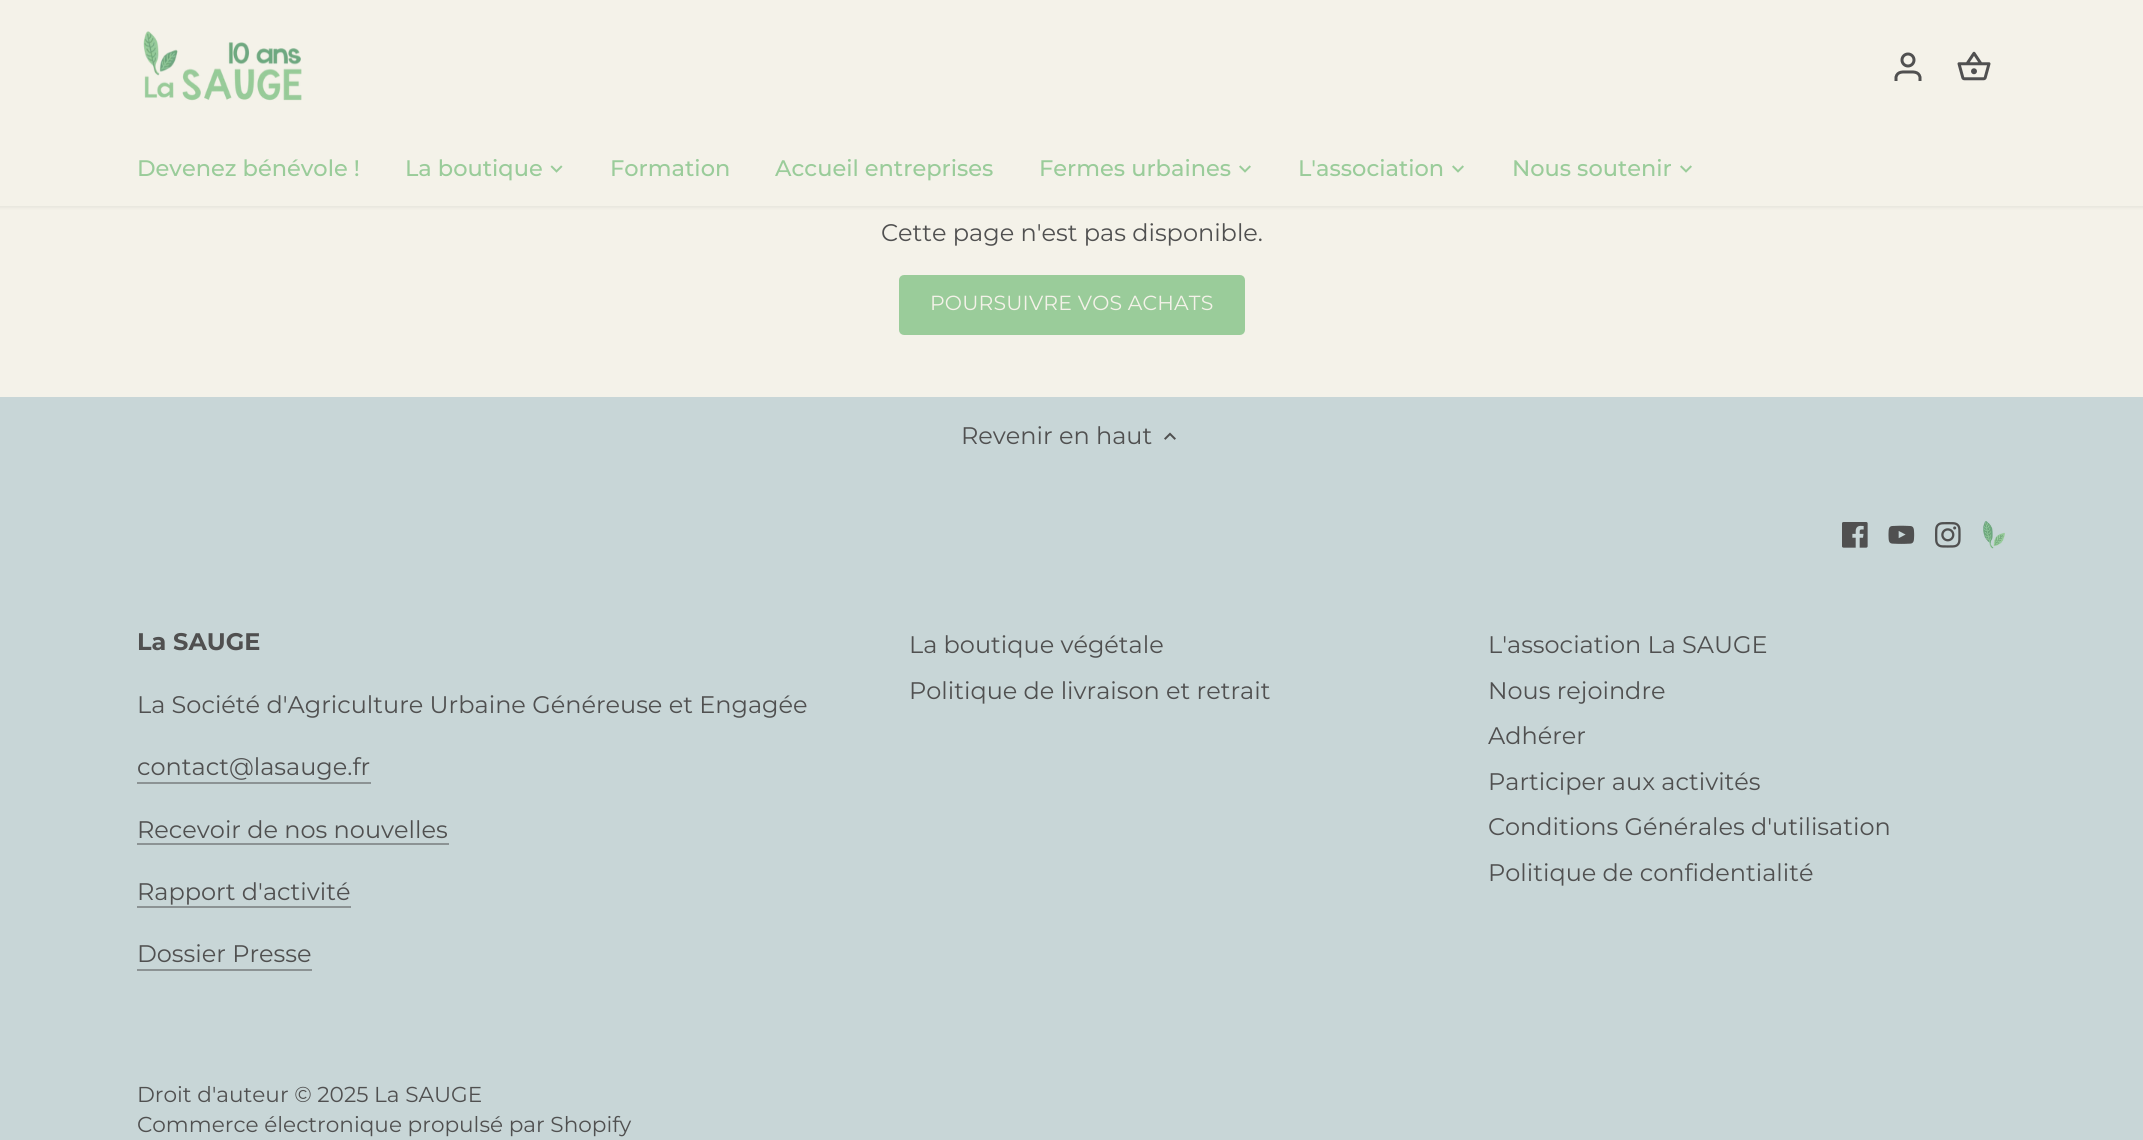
import math
import cairo

surface = cairo.ImageSurface(cairo.FORMAT_RGB24, 2143, 1140)
ctx = cairo.Context(surface)
options = cairo.FontOptions()
options.set_hint_metrics(cairo.HINT_METRICS_OFF)
options.set_hint_style(cairo.HINT_STYLE_NONE)
ctx.set_font_options(options)
ctx.set_miter_limit(4)


def set_color(code):
    ctx.set_source_rgb(*(v / 255 for v in bytes.fromhex(code[-6:])))


def draw_text(x, y, s, family, size, color, bold=False, italic=False):
    ctx.select_font_face(family, cairo.FONT_SLANT_ITALIC if italic else cairo.FONT_SLANT_NORMAL, cairo.FONT_WEIGHT_BOLD if bold else cairo.FONT_WEIGHT_NORMAL)
    ctx.set_font_size(size)
    set_color(color)
    ctx.move_to(x, y)
    ctx.show_text(s)


def draw_spaced(x, y, s, letter, word):
    ctx.move_to(x, y)
    for ch in s:
        ctx.show_text(ch)
        ctx.rel_move_to(letter + word * (ch == ' '), 0)


def fill_rect(x, y, w, h, color):
    set_color(color)
    ctx.rectangle(x, y, w, h)
    ctx.fill()


def rounded_rect(x, y, w, h, r):
    ctx.new_sub_path()
    for i, (u, v) in enumerate([(x + w - r, y + h - r), (x + r, y + h - r), (x + r, y + r), (x + w - r, y + r)]):
        ctx.arc(u, v, r, i * math.pi / 2, (i + 1) * math.pi / 2)
    ctx.close_path()


def draw_shadow(x, y, w, h, r, blur, alpha):
    ctx.push_group_with_content(cairo.CONTENT_ALPHA)
    ctx.set_operator(cairo.OPERATOR_SOURCE)
    for i in range(15, -16, -2):
        e = blur * i / 6
        if min(w, h) + 2 * e > 0:
            ctx.set_source_rgba(0, 0, 0, alpha * math.erfc((i - 1) / 8.5) / 2)
            rounded_rect(x - e, y - e, w + 2 * e, h + 2 * e, max(0, min(r + e + blur * .6, min(w, h) / 2 + e)))
            ctx.fill()
    ctx.mask(ctx.pop_group())


def draw_image(path, x, y, w, h):
    ctx.save()
    ctx.set_source_surface(cairo.ImageSurface.create_from_png(path), x, y)
    ctx.rectangle(x, y, w, h)
    ctx.fill()
    ctx.restore()


set_color("#c8d6d7")
ctx.paint()
fill_rect(0, 206, 2143, 191, "#f4f2e9")
set_color("#000000")
draw_shadow(-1, -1, 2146, 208, 0, 2, 0.08)
fill_rect(0, 0, 2143, 206, "#f4f2e9")
draw_image("assets/img1.png", 143, 31, 159, 70)
ctx.arc(1908, 60, 6, 0, 2 * math.pi)
set_color("#505050")
ctx.set_line_width(3)
ctx.stroke()
ctx.new_path()
ctx.move_to(1920, 81)
ctx.line_to(1920, 77)
ctx.curve_to(1918.5, 71, 1912.5, 72, 1908, 72)
ctx.curve_to(1903.5, 72, 1897.5, 71, 1896, 77)
ctx.line_to(1896, 81)
ctx.stroke()
draw_image("assets/img2.png", 1957, 51, 34, 30)
draw_text(137, 176, "Devenez bénévole !", "Montserrat Medium", 22.5, "#9acc9a")
draw_text(405, 176, "La boutique", "Montserrat Medium", 22.5, "#9acc9a")
draw_image("assets/img3.png", 550, 165, 13, 8)
draw_text(610, 176, "Formation", "Montserrat Medium", 22.5, "#9acc9a")
draw_text(775, 176, "Accueil entreprises", "Montserrat Medium", 22.5, "#9acc9a")
draw_text(1039, 176, "Fermes urbaines", "Montserrat Medium", 22.5, "#9acc9a")
draw_image("assets/img4.png", 1239, 165, 12, 8)
draw_text(1298, 176, "L'association", "Montserrat Medium", 22.5, "#9acc9a")
draw_image("assets/img4.png", 1452, 165, 12, 8)
draw_text(1512, 176, "Nous soutenir", "Montserrat Medium", 22.5, "#9acc9a")
draw_image("assets/img4.png", 1680, 165, 12, 8)
draw_text(881, 241, "Cette page n'est pas disponible.", "Montserrat", 24, "#505050")
set_color("#9acc9a")
rounded_rect(900.5, 276.5, 343, 57, 3.5)
ctx.fill_preserve()
ctx.stroke()
ctx.set_font_size(20.4)
set_color("#f4f2e9")
draw_spaced(930, 310, "POURSUIVRE VOS ACHATS", 0.2, 0)
draw_text(961, 444, "Revenir en haut", "Montserrat", 24, "#505050")
draw_image("assets/img5.png", 1164, 432, 12, 8)
draw_image("assets/img6.png", 1842, 522, 26, 26)
draw_image("assets/img7.png", 1888, 525, 27, 19)
draw_image("assets/img8.png", 1935, 522, 26, 26)
draw_image("assets/img9.png", 1983, 521, 22, 28)
draw_text(137, 650, "La SAUGE", "Montserrat", 24, "#505050", bold=True)
draw_text(137, 713, "La Société d'Agriculture Urbaine Généreuse et Engagée", "Montserrat", 24, "#505050")
draw_text(137, 775, "contact@lasauge.fr", "Montserrat", 24, "#505050")
fill_rect(137, 782, 234, 2, "#8c9394")
draw_text(137, 838, "Recevoir de nos nouvelles", "Montserrat", 24, "#505050")
fill_rect(137, 843, 312, 2, "#8c9394")
draw_text(137, 900, "Rapport d'activité", "Montserrat", 24, "#505050")
fill_rect(137, 906, 214, 2, "#8c9394")
draw_text(137, 962, "Dossier Presse", "Montserrat", 24, "#505050")
fill_rect(137, 969, 175, 2, "#8c9394")
draw_text(909, 653, "La boutique végétale", "Montserrat", 24, "#505050")
draw_text(909, 699, "Politique de livraison et retrait", "Montserrat", 24, "#505050")
draw_text(1488, 653, "L'association La SAUGE", "Montserrat", 24, "#505050")
draw_text(1488, 699, "Nous rejoindre", "Montserrat", 24, "#505050")
draw_text(1488, 744, "Adhérer", "Montserrat", 24, "#505050")
draw_text(1488, 790, "Participer aux activités", "Montserrat", 24, "#505050")
draw_text(1488, 835, "Conditions Générales d'utilisation", "Montserrat", 24, "#505050")
draw_text(1488, 881, "Politique de confidentialité", "Montserrat", 24, "#505050")
draw_text(137, 1102, "Droit d'auteur © 2025 La SAUGE", "Montserrat", 21.6, "#505050")
draw_text(137, 1132, "Commerce électronique propulsé par Shopify", "Montserrat", 21.6, "#505050")
surface.write_to_png("output.png")
